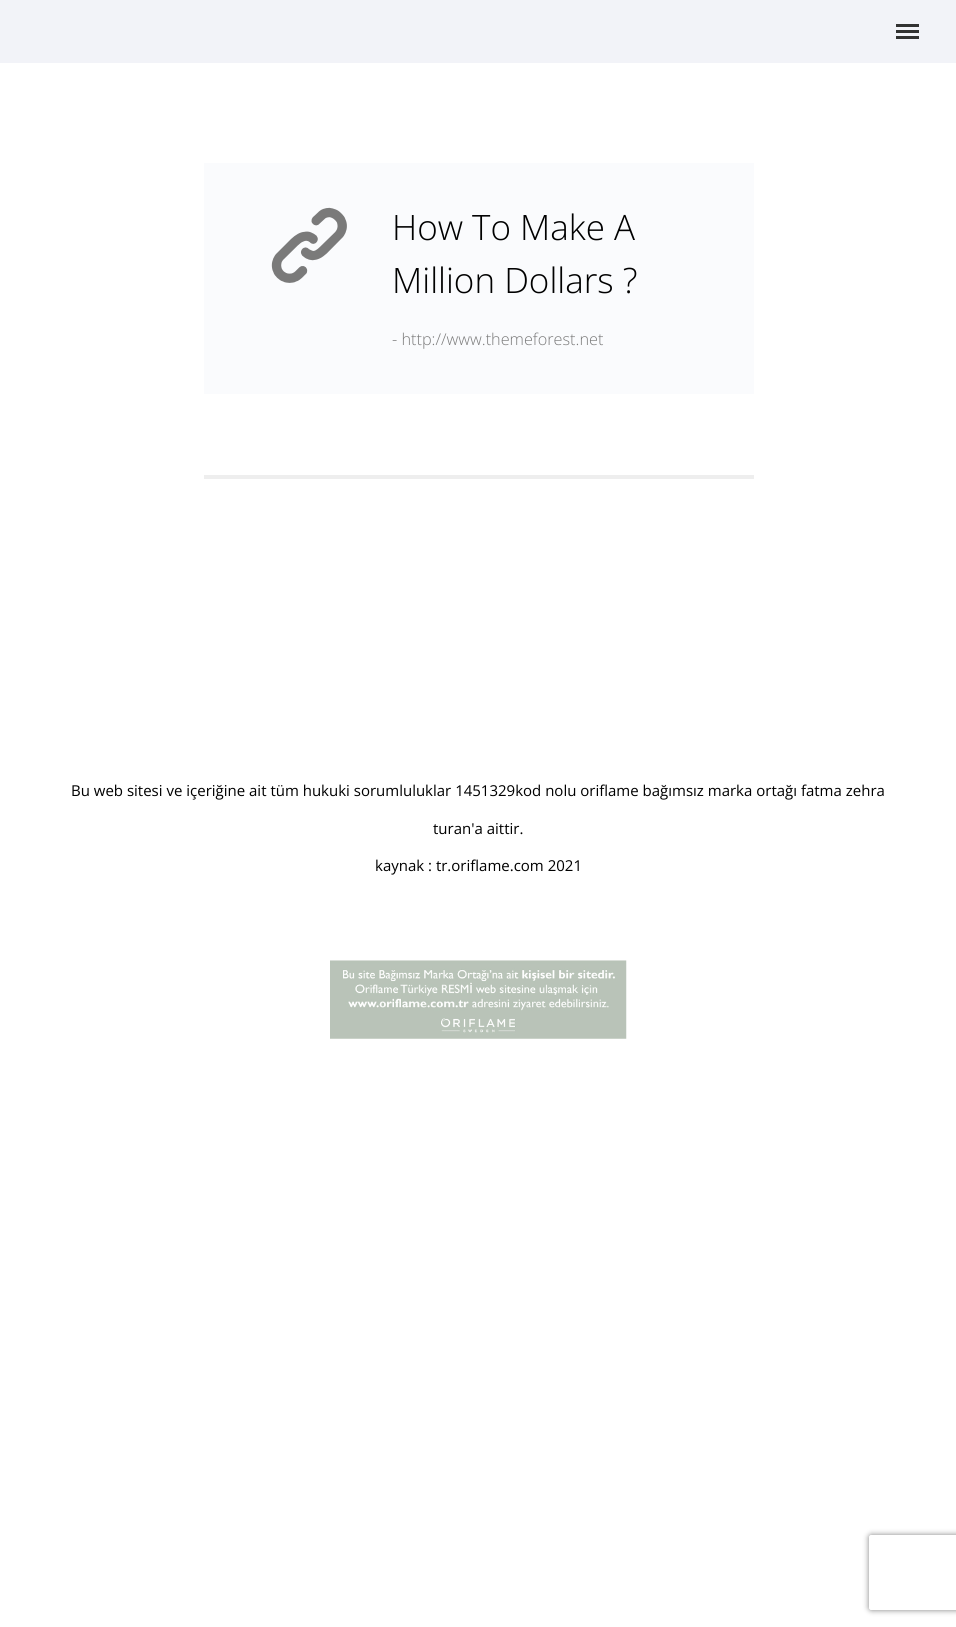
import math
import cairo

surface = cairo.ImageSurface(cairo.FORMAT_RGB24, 956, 1627)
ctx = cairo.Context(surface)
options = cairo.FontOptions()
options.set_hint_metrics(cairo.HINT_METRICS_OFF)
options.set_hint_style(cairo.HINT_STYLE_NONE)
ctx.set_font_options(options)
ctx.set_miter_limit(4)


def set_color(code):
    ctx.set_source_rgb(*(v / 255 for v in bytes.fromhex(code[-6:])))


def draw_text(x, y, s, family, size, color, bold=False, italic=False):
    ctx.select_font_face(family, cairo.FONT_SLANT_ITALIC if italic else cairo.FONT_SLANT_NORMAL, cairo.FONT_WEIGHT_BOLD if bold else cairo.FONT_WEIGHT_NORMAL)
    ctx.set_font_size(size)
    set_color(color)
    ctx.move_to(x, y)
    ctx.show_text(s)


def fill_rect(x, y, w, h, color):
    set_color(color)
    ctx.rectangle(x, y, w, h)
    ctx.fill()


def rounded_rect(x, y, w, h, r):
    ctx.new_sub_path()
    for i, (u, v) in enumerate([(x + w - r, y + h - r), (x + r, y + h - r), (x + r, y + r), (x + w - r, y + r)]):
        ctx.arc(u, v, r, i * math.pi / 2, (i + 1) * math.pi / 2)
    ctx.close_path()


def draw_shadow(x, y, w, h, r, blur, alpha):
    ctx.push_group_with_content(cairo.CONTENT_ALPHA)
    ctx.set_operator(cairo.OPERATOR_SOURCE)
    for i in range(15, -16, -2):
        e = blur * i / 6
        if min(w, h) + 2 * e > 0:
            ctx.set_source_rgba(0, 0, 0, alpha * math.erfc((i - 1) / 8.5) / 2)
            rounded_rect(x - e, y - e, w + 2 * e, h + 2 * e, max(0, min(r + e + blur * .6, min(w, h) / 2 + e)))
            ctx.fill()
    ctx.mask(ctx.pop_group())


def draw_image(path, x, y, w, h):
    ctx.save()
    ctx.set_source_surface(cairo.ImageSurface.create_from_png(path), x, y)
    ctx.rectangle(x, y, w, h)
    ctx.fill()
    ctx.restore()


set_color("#ffffff")
ctx.paint()
fill_rect(0, 0, 956, 63, "#f2f3f8")
fill_rect(896, 24, 23, 3, "#323232")
fill_rect(896, 30, 23, 3, "#323232")
fill_rect(896, 36, 23, 3, "#323232")
fill_rect(204, 163, 550, 231, "#fafbfd")
draw_image("assets/img1.png", 271, 207, 76, 76)
draw_text(392, 240, "How To Make A", "Open Sans Light", 35, "#000000")
draw_text(392, 293, "Million Dollars ?", "Open Sans Light", 35, "#000000")
draw_text(392, 345, "- http://www.themeforest.net", "Open Sans Light", 16.25, "#7a7a7a")
fill_rect(204, 475, 550, 4, "#eeeeee")
draw_text(71, 796, "Bu web sitesi ve içeriğine ait tüm hukuki sorumluluklar 1451329kod nolu oriflame bağımsız marka ortağı fatma zehra", "Open Sans", 15, "#000000")
draw_text(433, 834, "turan'a aittir.", "Open Sans", 15, "#000000")
draw_text(375, 871, "kaynak : tr.oriflame.com 2021", "Open Sans", 15, "#000000")
draw_image("assets/img2.png", 330, 960, 297, 79)
ctx.save()
ctx.set_fill_rule(cairo.FILL_RULE_EVEN_ODD)
ctx.new_path()
ctx.move_to(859, 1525)
ctx.line_to(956, 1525)
ctx.line_to(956, 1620)
ctx.line_to(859, 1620)
ctx.close_path()
ctx.move_to(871.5, 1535)
ctx.line_to(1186.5, 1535)
ctx.curve_to(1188, 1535, 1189, 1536, 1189, 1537.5)
ctx.line_to(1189, 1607.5)
ctx.curve_to(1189, 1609, 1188, 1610, 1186.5, 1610)
ctx.line_to(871.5, 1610)
ctx.curve_to(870, 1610, 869, 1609, 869, 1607.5)
ctx.line_to(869, 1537.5)
ctx.curve_to(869, 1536, 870, 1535, 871.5, 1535)
ctx.close_path()
ctx.clip()
set_color("#808080")
draw_shadow(869, 1535, 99, 75, 2.5, 3, 1)
ctx.restore()
surface.write_to_png("output.png")
